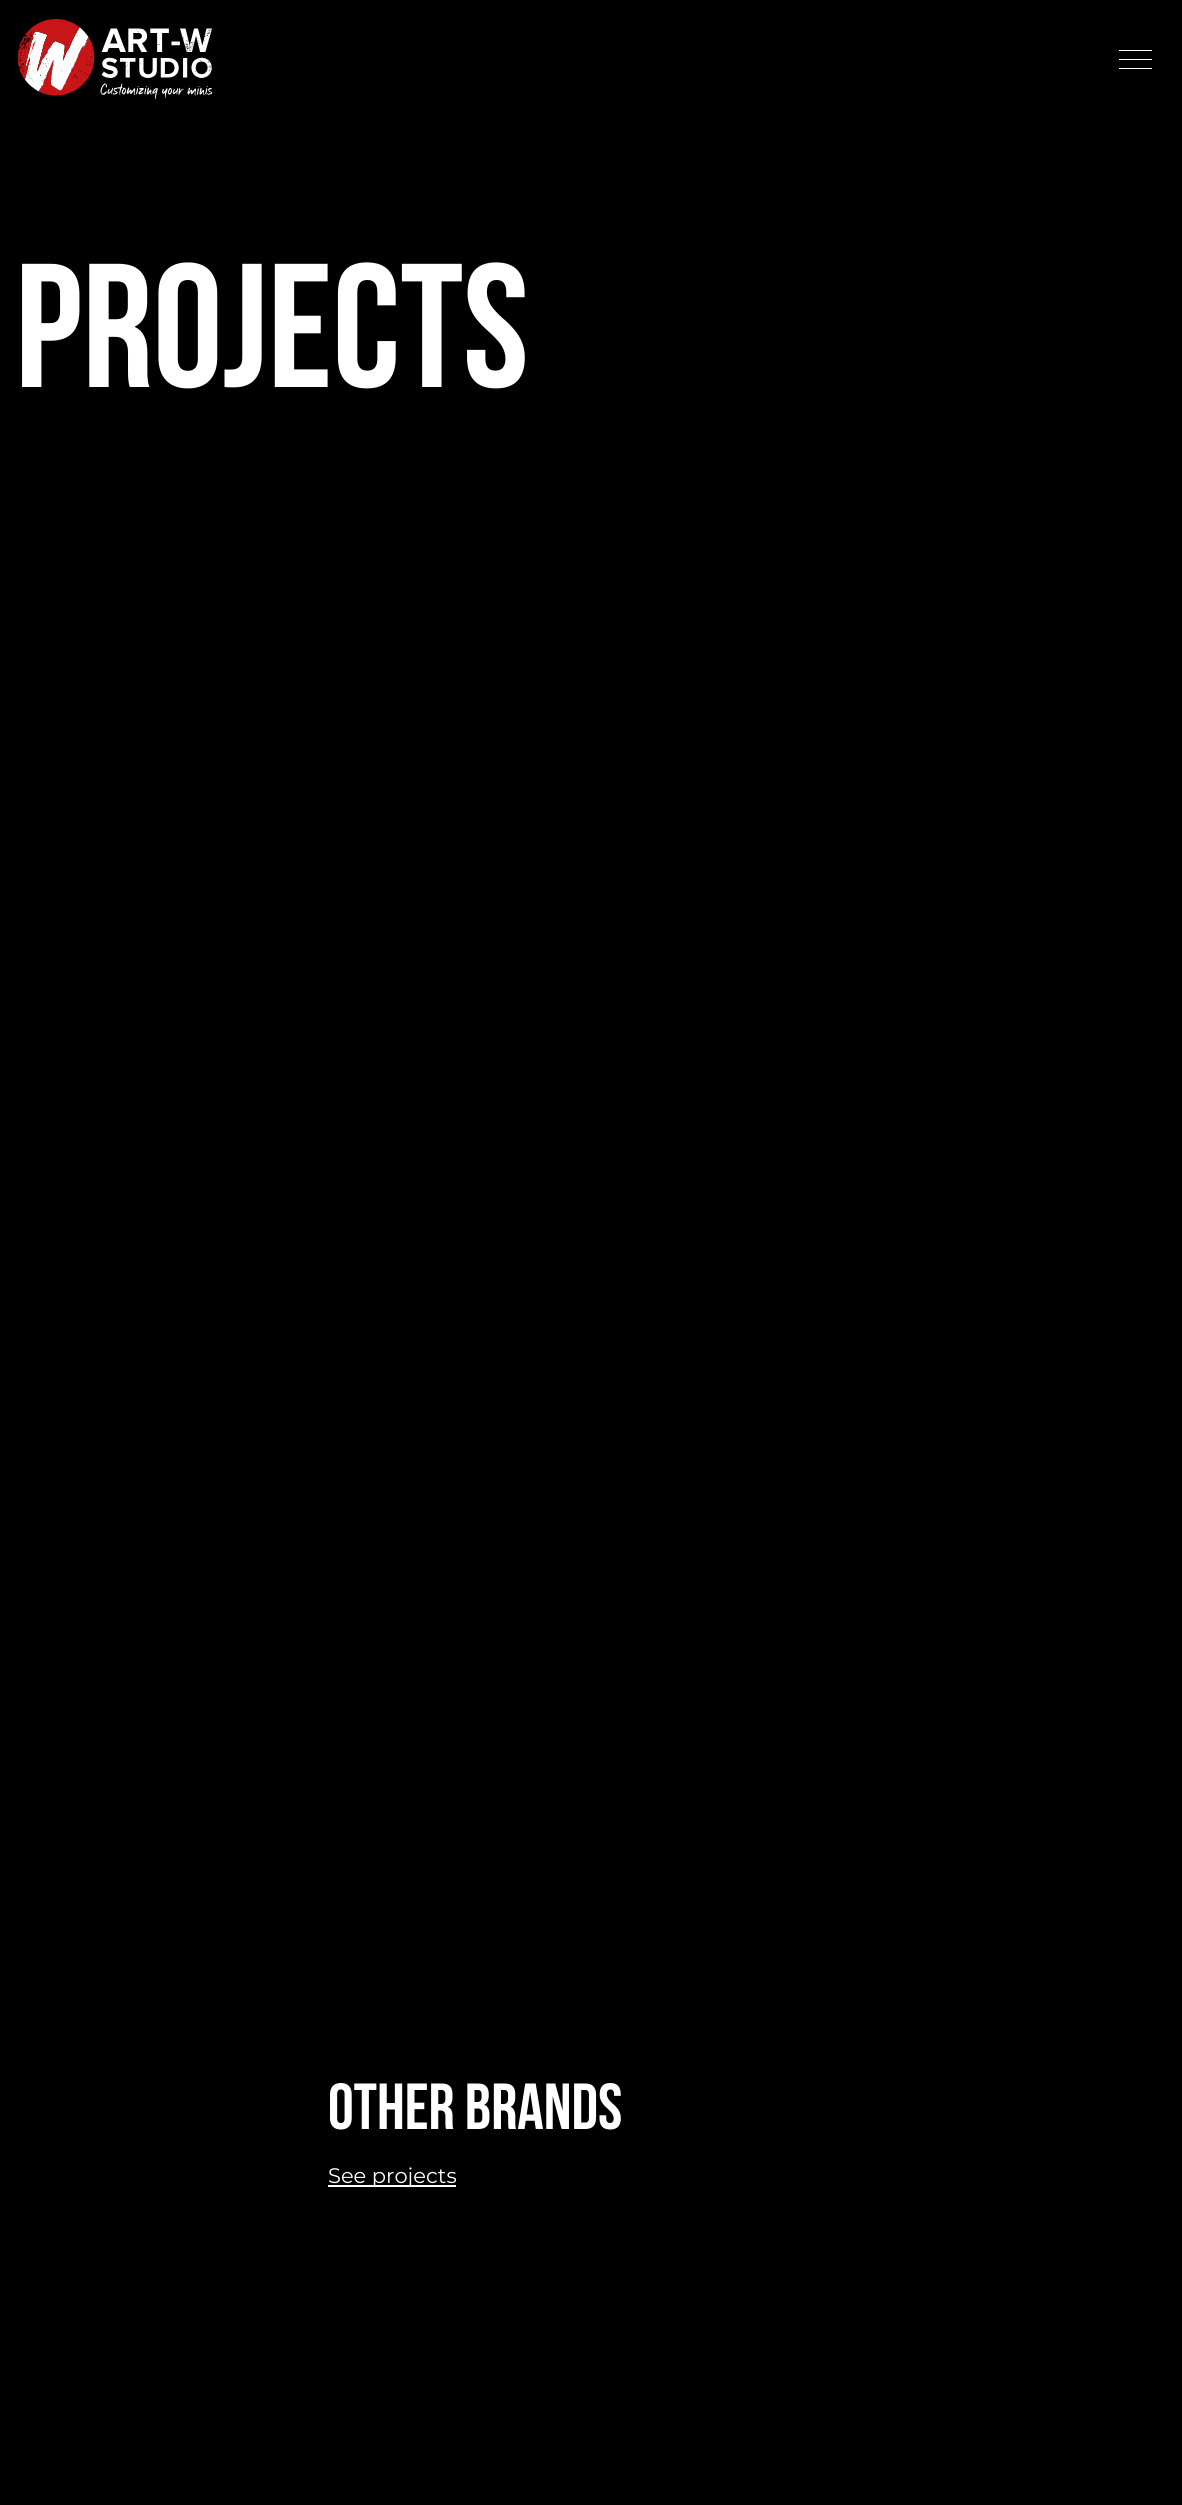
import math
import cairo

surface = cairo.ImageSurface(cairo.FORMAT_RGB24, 1182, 2505)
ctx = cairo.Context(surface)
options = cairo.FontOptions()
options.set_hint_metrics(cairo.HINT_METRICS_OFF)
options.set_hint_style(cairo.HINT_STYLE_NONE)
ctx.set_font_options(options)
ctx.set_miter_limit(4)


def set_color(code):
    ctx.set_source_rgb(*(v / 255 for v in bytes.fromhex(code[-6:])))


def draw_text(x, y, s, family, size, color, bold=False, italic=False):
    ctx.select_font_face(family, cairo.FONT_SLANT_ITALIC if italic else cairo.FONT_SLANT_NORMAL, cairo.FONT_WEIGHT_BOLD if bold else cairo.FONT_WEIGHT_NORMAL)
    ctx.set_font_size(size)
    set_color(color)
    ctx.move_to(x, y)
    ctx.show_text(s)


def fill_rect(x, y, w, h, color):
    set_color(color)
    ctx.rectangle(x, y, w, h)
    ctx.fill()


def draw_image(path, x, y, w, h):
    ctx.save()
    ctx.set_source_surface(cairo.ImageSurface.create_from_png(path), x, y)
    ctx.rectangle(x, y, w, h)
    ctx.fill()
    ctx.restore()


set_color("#000000")
ctx.paint()
draw_image("assets/img1.png", 17, 19, 196, 80)
fill_rect(1119, 50, 33, 1, "#ffffff")
fill_rect(1119, 59, 33, 1, "#ffffff")
fill_rect(1119, 68, 33, 1, "#ffffff")
draw_text(15, 387, "PROJECTS", "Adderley", 176, "#ffffff", bold=True)
draw_text(328, 2129, "Other brands", "Adderley", 65, "#ffffff", bold=True)
fill_rect(328, 2185, 128, 2, "#ffffff")
draw_text(328, 2183, "See projects", "Montserrat", 21, "#ffffff")
surface.write_to_png("output.png")
